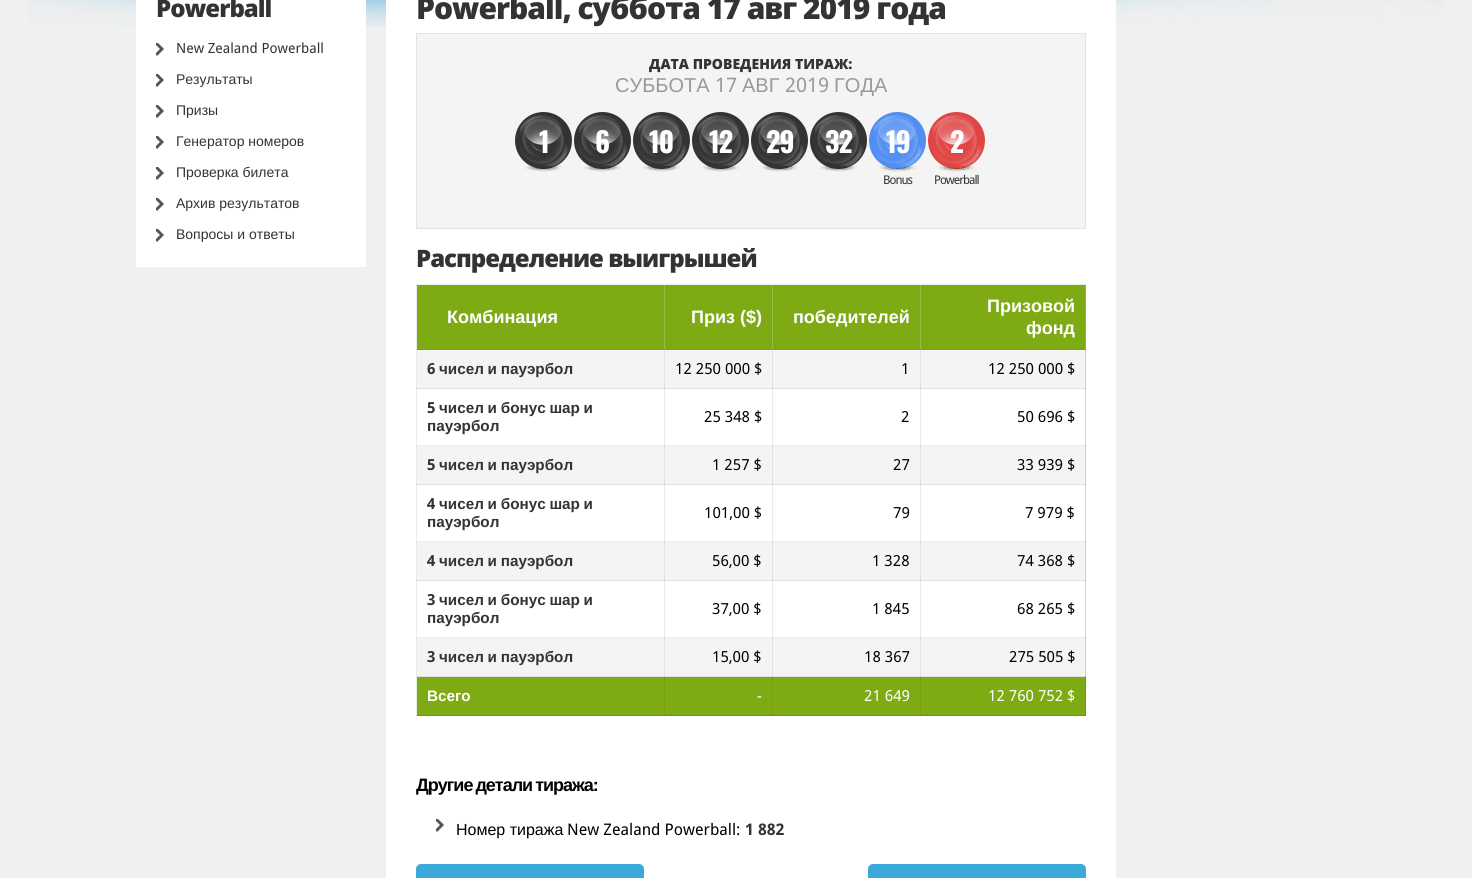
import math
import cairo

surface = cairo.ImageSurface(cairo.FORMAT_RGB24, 1472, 878)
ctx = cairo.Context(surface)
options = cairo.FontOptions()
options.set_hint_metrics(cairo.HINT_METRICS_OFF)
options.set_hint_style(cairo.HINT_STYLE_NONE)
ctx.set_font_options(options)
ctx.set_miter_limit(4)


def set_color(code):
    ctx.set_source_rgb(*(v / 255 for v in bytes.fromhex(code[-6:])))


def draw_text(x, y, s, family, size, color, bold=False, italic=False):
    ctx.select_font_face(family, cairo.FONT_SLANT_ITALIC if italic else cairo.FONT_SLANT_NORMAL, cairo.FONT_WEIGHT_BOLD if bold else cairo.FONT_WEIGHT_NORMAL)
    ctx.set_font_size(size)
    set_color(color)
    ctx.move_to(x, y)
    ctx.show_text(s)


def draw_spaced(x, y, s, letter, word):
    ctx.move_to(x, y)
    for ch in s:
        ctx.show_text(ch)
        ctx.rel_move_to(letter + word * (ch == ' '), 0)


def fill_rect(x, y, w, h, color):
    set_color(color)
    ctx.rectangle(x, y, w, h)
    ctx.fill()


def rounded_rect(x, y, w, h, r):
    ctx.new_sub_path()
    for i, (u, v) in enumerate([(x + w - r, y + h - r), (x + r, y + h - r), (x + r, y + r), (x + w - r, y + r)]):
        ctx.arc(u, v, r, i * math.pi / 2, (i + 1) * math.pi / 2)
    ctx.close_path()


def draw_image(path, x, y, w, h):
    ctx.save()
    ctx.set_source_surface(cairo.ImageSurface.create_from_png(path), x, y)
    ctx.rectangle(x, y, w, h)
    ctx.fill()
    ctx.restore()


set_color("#f0f0f0")
ctx.paint()
draw_image("assets/img1.png", 28, 0, 1416, 27)
fill_rect(136, 0, 230, 267, "#ffffff")
ctx.select_font_face("Open Sans ExtraBold")
ctx.set_font_size(24)
set_color("#333333")
draw_spaced(156, 17, "Powerball", -1, 0)
draw_image("assets/img2.png", 156, 43, 8, 13)
draw_text(176, 53, "New Zealand Powerball", "Droid Sans", 14, "#333333")
draw_image("assets/img2.png", 156, 74, 8, 13)
draw_text(176, 84, "Результаты", "Liberation Sans", 14, "#333333")
draw_image("assets/img2.png", 156, 105, 8, 13)
draw_text(176, 115, "Призы", "Liberation Sans", 14, "#333333")
draw_image("assets/img2.png", 156, 136, 8, 13)
draw_text(176, 146, "Генератор номеров", "Liberation Sans", 14, "#333333")
draw_image("assets/img2.png", 156, 167, 8, 13)
draw_text(176, 177, "Проверка билета", "Liberation Sans", 14, "#333333")
draw_image("assets/img2.png", 156, 198, 8, 13)
draw_text(176, 208, "Архив результатов", "Liberation Sans", 14, "#333333")
draw_image("assets/img2.png", 156, 229, 8, 13)
draw_text(176, 239, "Вопросы и ответы", "Liberation Sans", 14, "#333333")
fill_rect(386, 0, 730, 878, "#ffffff")
fill_rect(664, 388, 1, 58, "#ebebeb")
fill_rect(772, 388, 1, 58, "#ebebeb")
fill_rect(920, 388, 1, 58, "#ebebeb")
fill_rect(664, 484, 1, 58, "#ebebeb")
fill_rect(772, 484, 1, 58, "#ebebeb")
fill_rect(920, 484, 1, 58, "#ebebeb")
fill_rect(664, 580, 1, 58, "#ebebeb")
fill_rect(772, 580, 1, 58, "#ebebeb")
fill_rect(920, 580, 1, 58, "#ebebeb")
fill_rect(416, 445, 670, 1, "#ebebeb")
fill_rect(664, 445, 1, 1, "#c8c8c8")
fill_rect(772, 445, 1, 1, "#c8c8c8")
fill_rect(920, 445, 1, 1, "#c8c8c8")
fill_rect(416, 541, 670, 1, "#ebebeb")
fill_rect(664, 541, 1, 1, "#c8c8c8")
fill_rect(772, 541, 1, 1, "#c8c8c8")
fill_rect(920, 541, 1, 1, "#c8c8c8")
fill_rect(416, 637, 670, 1, "#ebebeb")
fill_rect(664, 637, 1, 1, "#c8c8c8")
fill_rect(772, 637, 1, 1, "#c8c8c8")
fill_rect(920, 637, 1, 1, "#c8c8c8")
fill_rect(416, 284, 1, 432, "#ebebeb")
fill_rect(416, 349, 1, 1, "#d9d9d9")
fill_rect(416, 388, 1, 1, "#d9d9d9")
fill_rect(416, 445, 1, 1, "#d9d9d9")
fill_rect(416, 484, 1, 1, "#d9d9d9")
fill_rect(416, 541, 1, 1, "#d9d9d9")
fill_rect(416, 580, 1, 1, "#d9d9d9")
fill_rect(416, 637, 1, 1, "#d9d9d9")
fill_rect(416, 676, 1, 1, "#d9d9d9")
fill_rect(416, 715, 1, 1, "#c8c8c8")
fill_rect(1085, 388, 1, 58, "#d9d9d9")
fill_rect(1085, 484, 1, 58, "#d9d9d9")
fill_rect(1085, 580, 1, 58, "#d9d9d9")
fill_rect(1085, 445, 1, 1, "#b9b9b9")
fill_rect(1085, 541, 1, 1, "#b9b9b9")
fill_rect(1085, 637, 1, 1, "#b9b9b9")
ctx.select_font_face("Open Sans ExtraBold")
ctx.set_font_size(30)
set_color("#333333")
draw_spaced(416, 19, "Powerball, суббота 17 авг 2019 года", -1, 0)
set_color("#f4f4f4")
ctx.rectangle(416.5, 33.5, 669, 195)
ctx.fill_preserve()
set_color("#e3e3e3")
ctx.set_line_width(1)
ctx.stroke()
draw_text(649, 69, "ДАТА ПРОВЕДЕНИЯ ТИРАЖ:", "Open Sans ExtraBold", 14, "#333333")
draw_text(615, 92, "СУББОТА", "Liberation Sans", 20, "#999999")
draw_text(715, 92, "17", "Droid Sans", 20, "#999999")
draw_text(742, 92, "АВГ", "Liberation Sans", 20, "#999999")
draw_text(785, 92, "2019", "Droid Sans", 20, "#999999")
draw_text(834, 92, "ГОДА", "Liberation Sans", 20, "#999999")
set_color("#333333")
ctx.new_path()
ctx.arc(543.5, 140.5, 28.5, 0, 2 * math.pi)
ctx.fill()
draw_image("assets/img4.png", 525, 165, 37, 7)
draw_image("assets/img3.png", 520, 115, 49, 51)
ctx.select_font_face("Oswald", cairo.FONT_SLANT_NORMAL, cairo.FONT_WEIGHT_BOLD)
ctx.set_font_size(28)
set_color("#ffffff")
draw_spaced(539, 153, "1", -1, 0)
set_color("#333333")
ctx.new_path()
ctx.arc(602.5, 140.5, 28.5, 0, 2 * math.pi)
ctx.fill()
draw_image("assets/img4.png", 584, 165, 37, 7)
draw_image("assets/img3.png", 579, 115, 49, 51)
set_color("#ffffff")
draw_spaced(595, 153, "6", -1, 0)
set_color("#333333")
ctx.new_path()
ctx.arc(661.5, 140.5, 28.5, 0, 2 * math.pi)
ctx.fill()
draw_image("assets/img4.png", 643, 165, 37, 7)
draw_image("assets/img3.png", 638, 115, 49, 51)
set_color("#ffffff")
draw_spaced(649, 153, "10", -1, 0)
set_color("#333333")
ctx.new_path()
ctx.arc(720.5, 140.5, 28.5, 0, 2 * math.pi)
ctx.fill()
draw_image("assets/img4.png", 702, 165, 37, 7)
draw_image("assets/img3.png", 697, 115, 49, 51)
set_color("#ffffff")
draw_spaced(709, 153, "12", -1, 0)
set_color("#333333")
ctx.new_path()
ctx.arc(779.5, 140.5, 28.5, 0, 2 * math.pi)
ctx.fill()
draw_image("assets/img4.png", 761, 165, 37, 7)
draw_image("assets/img3.png", 756, 115, 49, 51)
set_color("#ffffff")
draw_spaced(766, 153, "29", -1, 0)
set_color("#333333")
ctx.new_path()
ctx.arc(838.5, 140.5, 28.5, 0, 2 * math.pi)
ctx.fill()
draw_image("assets/img4.png", 820, 165, 37, 7)
draw_image("assets/img3.png", 815, 115, 49, 51)
set_color("#ffffff")
draw_spaced(825, 153, "32", -1, 0)
set_color("#518ef2")
ctx.new_path()
ctx.arc(897.5, 140.5, 28.5, 0, 2 * math.pi)
ctx.fill()
draw_image("assets/img6.png", 879, 165, 37, 7)
draw_image("assets/img5.png", 874, 115, 49, 51)
set_color("#ffffff")
draw_spaced(886, 153, "19", -1, 0)
ctx.select_font_face("Droid Sans")
ctx.set_font_size(12)
set_color("#333333")
draw_spaced(883, 184, "Bonus", -1, 0)
set_color("#df4545")
ctx.new_path()
ctx.arc(956.5, 140.5, 28.5, 0, 2 * math.pi)
ctx.fill()
draw_image("assets/img8.png", 938, 165, 37, 7)
draw_image("assets/img7.png", 933, 115, 49, 51)
ctx.select_font_face("Oswald", cairo.FONT_SLANT_NORMAL, cairo.FONT_WEIGHT_BOLD)
ctx.set_font_size(28)
set_color("#ffffff")
draw_spaced(950, 153, "2", -1, 0)
ctx.select_font_face("Droid Sans")
ctx.set_font_size(12)
set_color("#333333")
draw_spaced(934, 184, "Powerball", -1, 0)
ctx.select_font_face("Open Sans ExtraBold")
ctx.set_font_size(24)
draw_spaced(416, 267, "Распределение выигрышей", -1, 0)
fill_rect(416, 284, 670, 1, "#ebebeb")
fill_rect(664, 284, 1, 1, "#efefef")
fill_rect(772, 284, 1, 1, "#efefef")
fill_rect(920, 284, 1, 1, "#efefef")
fill_rect(416, 284, 1, 1, "#d9d9d9")
fill_rect(1085, 284, 1, 1, "#e1e1e1")
fill_rect(417, 285, 247, 64, "#7eab14")
fill_rect(417, 349, 247, 1, "#779f17")
draw_text(447, 323, "Комбинация", "Liberation Sans", 18, "#ffffff", bold=True)
fill_rect(665, 285, 107, 64, "#7eab14")
fill_rect(664, 285, 1, 65, "#98bc43")
fill_rect(664, 349, 108, 1, "#779f17")
fill_rect(664, 349, 1, 1, "#8da948")
draw_text(691, 323, "Приз ($)", "Liberation Sans", 18, "#ffffff", bold=True)
fill_rect(773, 285, 147, 64, "#7eab14")
fill_rect(772, 285, 1, 65, "#98bc43")
fill_rect(772, 349, 148, 1, "#779f17")
fill_rect(772, 349, 1, 1, "#8da948")
draw_text(793, 323, "победителей", "Liberation Sans", 18, "#ffffff", bold=True)
fill_rect(921, 285, 164, 64, "#7eab14")
fill_rect(920, 285, 1, 65, "#98bc43")
fill_rect(920, 349, 166, 1, "#779f17")
fill_rect(920, 349, 1, 1, "#8da948")
fill_rect(1085, 285, 1, 65, "#92b245")
fill_rect(1085, 349, 1, 1, "#88a14a")
draw_text(987, 312, "Призовой", "Liberation Sans", 18, "#ffffff", bold=True)
draw_text(1026, 334, "фонд", "Liberation Sans", 18, "#ffffff", bold=True)
fill_rect(417, 350, 668, 38, "#f4f4f4")
fill_rect(664, 350, 1, 39, "#e1e1e1")
fill_rect(772, 350, 1, 39, "#e1e1e1")
fill_rect(920, 350, 1, 39, "#e1e1e1")
fill_rect(417, 388, 669, 1, "#e1e1e1")
fill_rect(664, 388, 1, 1, "#c0c0c0")
fill_rect(772, 388, 1, 1, "#c0c0c0")
fill_rect(920, 388, 1, 1, "#c0c0c0")
fill_rect(1085, 350, 1, 39, "#d0d0d0")
fill_rect(1085, 388, 1, 1, "#b2b2b2")
draw_text(427, 374, "6", "Droid Sans", 15.25, "#333333", bold=True)
ctx.select_font_face("Liberation Sans", cairo.FONT_SLANT_NORMAL, cairo.FONT_WEIGHT_BOLD)
draw_spaced(439, 374, "чисел и пауэрбол", 0, -0.5)
draw_text(675, 374, "12 250 000 $", "Droid Sans", 15.25, "#000000")
draw_text(901, 374, "1", "Droid Sans", 15.25, "#000000")
draw_text(988, 374, "12 250 000 $", "Droid Sans", 15.25, "#000000")
draw_text(427, 413, "5", "Droid Sans", 15.25, "#333333", bold=True)
ctx.select_font_face("Liberation Sans", cairo.FONT_SLANT_NORMAL, cairo.FONT_WEIGHT_BOLD)
draw_spaced(439, 413, "чисел и бонус шар и", 0, -0.5)
draw_text(427, 431, "пауэрбол", "Liberation Sans", 15.25, "#333333", bold=True)
draw_text(704, 422, "25 348 $", "Droid Sans", 15.25, "#000000")
draw_text(901, 422, "2", "Droid Sans", 15.25, "#000000")
draw_text(1017, 422, "50 696 $", "Droid Sans", 15.25, "#000000")
fill_rect(417, 446, 668, 38, "#f4f4f4")
fill_rect(664, 446, 1, 39, "#e1e1e1")
fill_rect(772, 446, 1, 39, "#e1e1e1")
fill_rect(920, 446, 1, 39, "#e1e1e1")
fill_rect(417, 484, 669, 1, "#e1e1e1")
fill_rect(664, 484, 1, 1, "#c0c0c0")
fill_rect(772, 484, 1, 1, "#c0c0c0")
fill_rect(920, 484, 1, 1, "#c0c0c0")
fill_rect(1085, 446, 1, 39, "#d0d0d0")
fill_rect(1085, 484, 1, 1, "#b2b2b2")
draw_text(427, 470, "5", "Droid Sans", 15.25, "#333333", bold=True)
ctx.select_font_face("Liberation Sans", cairo.FONT_SLANT_NORMAL, cairo.FONT_WEIGHT_BOLD)
draw_spaced(439, 470, "чисел и пауэрбол", 0, -0.5)
draw_text(712, 470, "1 257 $", "Droid Sans", 15.25, "#000000")
draw_text(893, 470, "27", "Droid Sans", 15.25, "#000000")
draw_text(1017, 470, "33 939 $", "Droid Sans", 15.25, "#000000")
draw_text(427, 509, "4", "Droid Sans", 15.25, "#333333", bold=True)
ctx.select_font_face("Liberation Sans", cairo.FONT_SLANT_NORMAL, cairo.FONT_WEIGHT_BOLD)
draw_spaced(439, 509, "чисел и бонус шар и", 0, -0.5)
draw_text(427, 527, "пауэрбол", "Liberation Sans", 15.25, "#333333", bold=True)
draw_text(704, 518, "101,00 $", "Droid Sans", 15.25, "#000000")
draw_text(893, 518, "79", "Droid Sans", 15.25, "#000000")
draw_text(1025, 518, "7 979 $", "Droid Sans", 15.25, "#000000")
fill_rect(417, 542, 668, 38, "#f4f4f4")
fill_rect(664, 542, 1, 39, "#e1e1e1")
fill_rect(772, 542, 1, 39, "#e1e1e1")
fill_rect(920, 542, 1, 39, "#e1e1e1")
fill_rect(417, 580, 669, 1, "#e1e1e1")
fill_rect(664, 580, 1, 1, "#c0c0c0")
fill_rect(772, 580, 1, 1, "#c0c0c0")
fill_rect(920, 580, 1, 1, "#c0c0c0")
fill_rect(1085, 542, 1, 39, "#d0d0d0")
fill_rect(1085, 580, 1, 1, "#b2b2b2")
draw_text(427, 566, "4", "Droid Sans", 15.25, "#333333", bold=True)
ctx.select_font_face("Liberation Sans", cairo.FONT_SLANT_NORMAL, cairo.FONT_WEIGHT_BOLD)
draw_spaced(439, 566, "чисел и пауэрбол", 0, -0.5)
draw_text(712, 566, "56,00 $", "Droid Sans", 15.25, "#000000")
draw_text(872, 566, "1 328", "Droid Sans", 15.25, "#000000")
draw_text(1017, 566, "74 368 $", "Droid Sans", 15.25, "#000000")
draw_text(427, 605, "3", "Droid Sans", 15.25, "#333333", bold=True)
ctx.select_font_face("Liberation Sans", cairo.FONT_SLANT_NORMAL, cairo.FONT_WEIGHT_BOLD)
draw_spaced(439, 605, "чисел и бонус шар и", 0, -0.5)
draw_text(427, 623, "пауэрбол", "Liberation Sans", 15.25, "#333333", bold=True)
draw_text(712, 614, "37,00 $", "Droid Sans", 15.25, "#000000")
draw_text(872, 614, "1 845", "Droid Sans", 15.25, "#000000")
draw_text(1017, 614, "68 265 $", "Droid Sans", 15.25, "#000000")
fill_rect(417, 638, 668, 38, "#f4f4f4")
fill_rect(664, 638, 1, 39, "#e1e1e1")
fill_rect(772, 638, 1, 39, "#e1e1e1")
fill_rect(920, 638, 1, 39, "#e1e1e1")
fill_rect(417, 676, 669, 1, "#e1e1e1")
fill_rect(664, 676, 1, 1, "#c0c0c0")
fill_rect(772, 676, 1, 1, "#c0c0c0")
fill_rect(920, 676, 1, 1, "#c0c0c0")
fill_rect(1085, 638, 1, 39, "#d0d0d0")
fill_rect(1085, 676, 1, 1, "#b2b2b2")
draw_text(427, 662, "3", "Droid Sans", 15.25, "#333333", bold=True)
ctx.select_font_face("Liberation Sans", cairo.FONT_SLANT_NORMAL, cairo.FONT_WEIGHT_BOLD)
draw_spaced(439, 662, "чисел и пауэрбол", 0, -0.5)
draw_text(712, 662, "15,00 $", "Droid Sans", 15.25, "#000000")
draw_text(864, 662, "18 367", "Droid Sans", 15.25, "#000000")
draw_text(1009, 662, "275 505 $", "Droid Sans", 15.25, "#000000")
fill_rect(417, 677, 668, 38, "#7eab14")
fill_rect(664, 677, 1, 39, "#779f17")
fill_rect(772, 677, 1, 39, "#779f17")
fill_rect(920, 677, 1, 39, "#779f17")
fill_rect(417, 715, 669, 1, "#70941a")
fill_rect(664, 715, 1, 1, "#6a8a1d")
fill_rect(772, 715, 1, 1, "#6a8a1d")
fill_rect(920, 715, 1, 1, "#6a8a1d")
fill_rect(1085, 677, 1, 39, "#70941a")
fill_rect(1085, 715, 1, 1, "#65811f")
draw_text(427, 701, "Всего", "Liberation Sans", 15.25, "#ffffff", bold=True)
draw_text(757, 701, "-", "Droid Sans", 15.25, "#ffffff")
draw_text(864, 701, "21 649", "Droid Sans", 15.25, "#ffffff")
draw_text(988, 701, "12 760 752 $", "Droid Sans", 15.25, "#ffffff")
ctx.select_font_face("Liberation Sans", cairo.FONT_SLANT_NORMAL, cairo.FONT_WEIGHT_BOLD)
ctx.set_font_size(18)
set_color("#000000")
draw_spaced(416, 791, "Другие детали тиража:", -1, -1)
draw_image("assets/img2.png", 436, 819, 8, 13)
draw_text(456, 835, "Номер тиража", "Liberation Sans", 16, "#000000")
draw_text(567, 835, "New Zealand Powerball:", "Droid Sans", 16, "#000000")
draw_text(745, 835, "1 882", "Droid Sans", 16, "#333333", bold=True)
set_color("#3ba9da")
rounded_rect(416, 864, 228, 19, 5)
ctx.fill()
rounded_rect(868, 864, 218, 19, 5)
ctx.fill()
surface.write_to_png("output.png")
